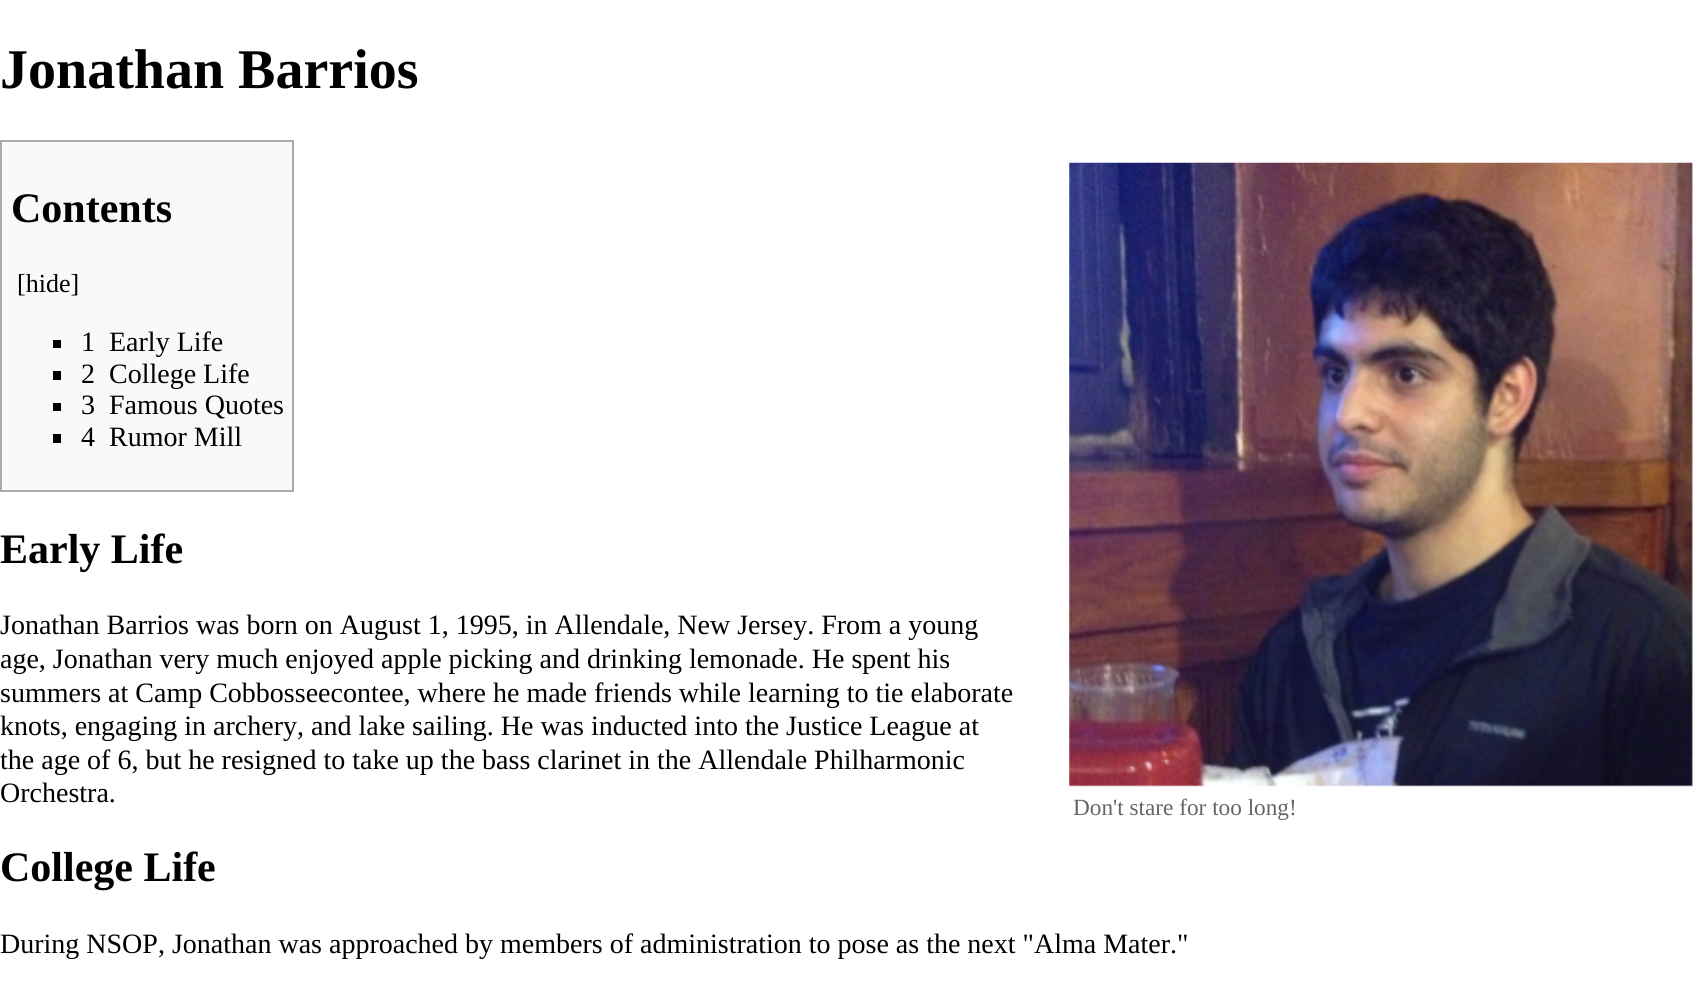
import math
import cairo

surface = cairo.ImageSurface(cairo.FORMAT_RGB24, 1703, 991)
ctx = cairo.Context(surface)
options = cairo.FontOptions()
options.set_hint_metrics(cairo.HINT_METRICS_OFF)
options.set_hint_style(cairo.HINT_STYLE_NONE)
ctx.set_font_options(options)
ctx.set_miter_limit(4)


def set_color(code):
    ctx.set_source_rgb(*(v / 255 for v in bytes.fromhex(code[-6:])))


def draw_text(x, y, s, family, size, color, bold=False, italic=False):
    ctx.select_font_face(family, cairo.FONT_SLANT_ITALIC if italic else cairo.FONT_SLANT_NORMAL, cairo.FONT_WEIGHT_BOLD if bold else cairo.FONT_WEIGHT_NORMAL)
    ctx.set_font_size(size)
    set_color(color)
    ctx.move_to(x, y)
    ctx.show_text(s)


def fill_rect(x, y, w, h, color):
    set_color(color)
    ctx.rectangle(x, y, w, h)
    ctx.fill()


def draw_image(path, x, y, w, h):
    ctx.save()
    ctx.set_source_surface(cairo.ImageSurface.create_from_png(path), x, y)
    ctx.rectangle(x, y, w, h)
    ctx.fill()
    ctx.restore()


set_color("#ffffff")
ctx.paint()
draw_text(0, 88, "Jonathan Barrios", "Liberation Serif", 56, "#000000", bold=True)
set_color("#f9f9f9")
ctx.rectangle(1, 141, 292, 350)
ctx.fill_preserve()
set_color("#aaaaaa")
ctx.stroke()
draw_text(11, 222, "Contents", "Liberation Serif", 42, "#000000", bold=True)
draw_text(17, 292, "[hide]", "Liberation Serif", 26, "#000000")
fill_rect(53, 340, 8, 8, "#000000")
draw_text(81, 351, "1", "Liberation Serif", 28, "#000000")
draw_text(109, 351, "Early Life", "Liberation Serif", 28, "#000000")
fill_rect(53, 371, 8, 9, "#000000")
draw_text(81, 383, "2", "Liberation Serif", 28, "#000000")
draw_text(109, 383, "College Life", "Liberation Serif", 28, "#000000")
fill_rect(53, 403, 8, 8, "#000000")
draw_text(81, 414, "3", "Liberation Serif", 28, "#000000")
draw_text(109, 414, "Famous Quotes", "Liberation Serif", 28, "#000000")
fill_rect(53, 434, 8, 9, "#000000")
draw_text(81, 446, "4", "Liberation Serif", 28, "#000000")
draw_text(109, 446, "Rumor Mill", "Liberation Serif", 28, "#000000")
draw_text(0, 563, "Early Life", "Liberation Serif", 42, "#000000", bold=True)
draw_text(0, 634, "Jonathan Barrios was born on August 1, 1995, in Allendale, New Jersey. From a young", "Liberation Serif", 28, "#000000")
draw_text(0, 668, "age, Jonathan very much enjoyed apple picking and drinking lemonade. He spent his", "Liberation Serif", 28, "#000000")
draw_text(0, 702, "summers at Camp Cobbosseecontee, where he made friends while learning to tie elaborate", "Liberation Serif", 28, "#000000")
draw_text(0, 735, "knots, engaging in archery, and lake sailing. He was inducted into the Justice League at", "Liberation Serif", 28, "#000000")
draw_text(0, 769, "the age of 6, but he resigned to take up the bass clarinet in the Allendale Philharmonic", "Liberation Serif", 28, "#000000")
draw_text(0, 802, "Orchestra.", "Liberation Serif", 28, "#000000")
draw_image("assets/img1.png", 1069, 162, 624, 625)
draw_text(1073, 815, "Don't stare for too long!", "Liberation Serif", 23.25, "#666666")
draw_text(0, 881, "College Life", "Liberation Serif", 42, "#000000", bold=True)
draw_text(0, 953, "During NSOP, Jonathan was approached by members of administration to pose as the next \"Alma Mater.\"", "Liberation Serif", 28, "#000000")
surface.write_to_png("output.png")
